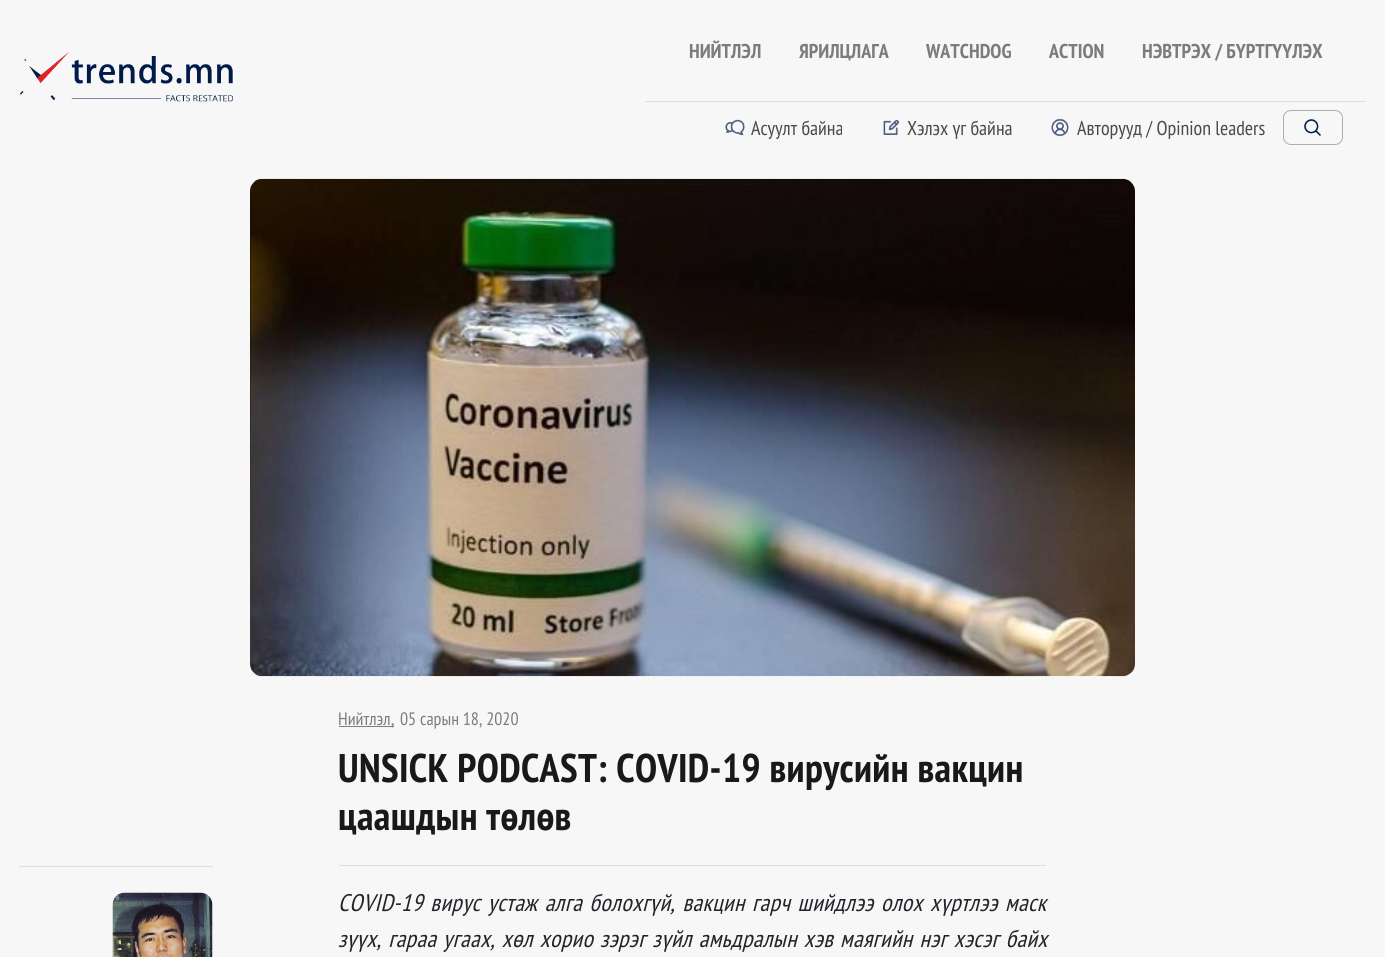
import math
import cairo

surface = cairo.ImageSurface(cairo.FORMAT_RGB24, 1385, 957)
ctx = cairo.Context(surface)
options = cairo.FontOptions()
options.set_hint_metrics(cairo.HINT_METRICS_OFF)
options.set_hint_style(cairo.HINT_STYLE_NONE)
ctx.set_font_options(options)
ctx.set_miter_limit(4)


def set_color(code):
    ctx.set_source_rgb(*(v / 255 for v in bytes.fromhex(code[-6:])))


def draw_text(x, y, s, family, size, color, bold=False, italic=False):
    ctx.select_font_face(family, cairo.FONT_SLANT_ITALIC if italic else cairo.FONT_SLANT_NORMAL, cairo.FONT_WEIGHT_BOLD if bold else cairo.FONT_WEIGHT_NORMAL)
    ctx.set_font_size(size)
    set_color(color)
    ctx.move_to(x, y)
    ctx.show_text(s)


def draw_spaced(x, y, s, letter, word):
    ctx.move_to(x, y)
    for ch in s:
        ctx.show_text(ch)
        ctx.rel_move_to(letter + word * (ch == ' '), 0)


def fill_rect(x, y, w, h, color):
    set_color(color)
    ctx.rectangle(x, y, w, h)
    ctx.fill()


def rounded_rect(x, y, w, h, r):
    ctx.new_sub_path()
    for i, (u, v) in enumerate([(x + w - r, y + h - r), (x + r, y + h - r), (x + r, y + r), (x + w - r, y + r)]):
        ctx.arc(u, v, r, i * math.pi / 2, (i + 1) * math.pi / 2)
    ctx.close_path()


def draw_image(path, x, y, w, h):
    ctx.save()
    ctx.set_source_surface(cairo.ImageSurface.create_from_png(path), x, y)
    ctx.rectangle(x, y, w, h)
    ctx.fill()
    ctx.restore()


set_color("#f7f7f7")
ctx.paint()
draw_image("assets/img1.png", 20, 52, 213, 50)
fill_rect(645, 101, 721, 1, "#dedede")
draw_text(689, 58, "НИЙТЛЭЛ", "PT Sans Narrow", 20, "#7c7c7c", bold=True)
draw_text(799, 58, "ЯРИЛЦЛАГА", "PT Sans Narrow", 20, "#7c7c7c", bold=True)
draw_text(926, 58, "WATCHDOG", "PT Sans Narrow", 20, "#7c7c7c", bold=True)
draw_text(1049, 58, "ACTION", "PT Sans Narrow", 20, "#7c7c7c", bold=True)
draw_text(1142, 58, "НЭВТРЭХ / БҮРТГҮҮЛЭХ", "PT Sans Narrow", 20, "#7c7c7c", bold=True)
draw_image("assets/img2.png", 725, 119, 20, 17)
draw_text(751, 135, "Асуулт байна", "PT Sans Narrow", 20, "#4a4a4a")
draw_image("assets/img3.png", 883, 120, 17, 15)
draw_text(907, 135, "Хэлэх үг байна", "PT Sans Narrow", 20, "#4a4a4a")
draw_image("assets/img4.png", 1051, 118, 18, 19)
draw_text(1077, 135, "Авторууд / Opinion leaders", "PT Sans Narrow", 20, "#4a4a4a")
rounded_rect(1283.5, 110.5, 59, 34, 7.5)
set_color("#adadad")
ctx.set_line_width(1)
ctx.stroke()
draw_image("assets/img5.png", 1304, 119, 17, 17)
draw_image("assets/img6.png", 250, 178, 885, 499)
draw_text(338, 725, "Нийтлэл", "PT Sans Narrow", 18, "#7c7c7c")
fill_rect(339, 726, 55, 1, "#7c7c7c")
draw_text(391, 725, ",", "PT Sans Narrow", 18, "#727272")
draw_text(400, 725, "05 сарын 18, 2020", "PT Sans Narrow", 18, "#7c7c7c")
fill_rect(339, 865, 707, 1, "#dedede")
ctx.select_font_face("PT Sans Narrow", cairo.FONT_SLANT_NORMAL, cairo.FONT_WEIGHT_BOLD)
ctx.set_font_size(40)
set_color("#191919")
draw_spaced(338, 782, "UNSICK PODCAST: COVID-19 вирусийн вакцин", 0.38, 0)
draw_spaced(338, 830, "цаашдын төлөв", 0.38, 0)
fill_rect(19, 866, 194, 1, "#dedede")
draw_image("assets/img7.png", 112, 892, 101, 65)
ctx.select_font_face("PT Sans Narrow", cairo.FONT_SLANT_ITALIC)
ctx.set_font_size(24)
set_color("#212529")
draw_spaced(338, 911, "COVID-19 вирус устаж алга болохгүй, вакцин гарч шийдлээ олох хүртлээ маск", 0.38, 1.8)
draw_spaced(338, 947, "зүүх, гараа угаах, хөл хорио зэрэг зүйл амьдралын хэв маягийн нэг хэсэг байх", 0.38, 1.25)
surface.write_to_png("output.png")
